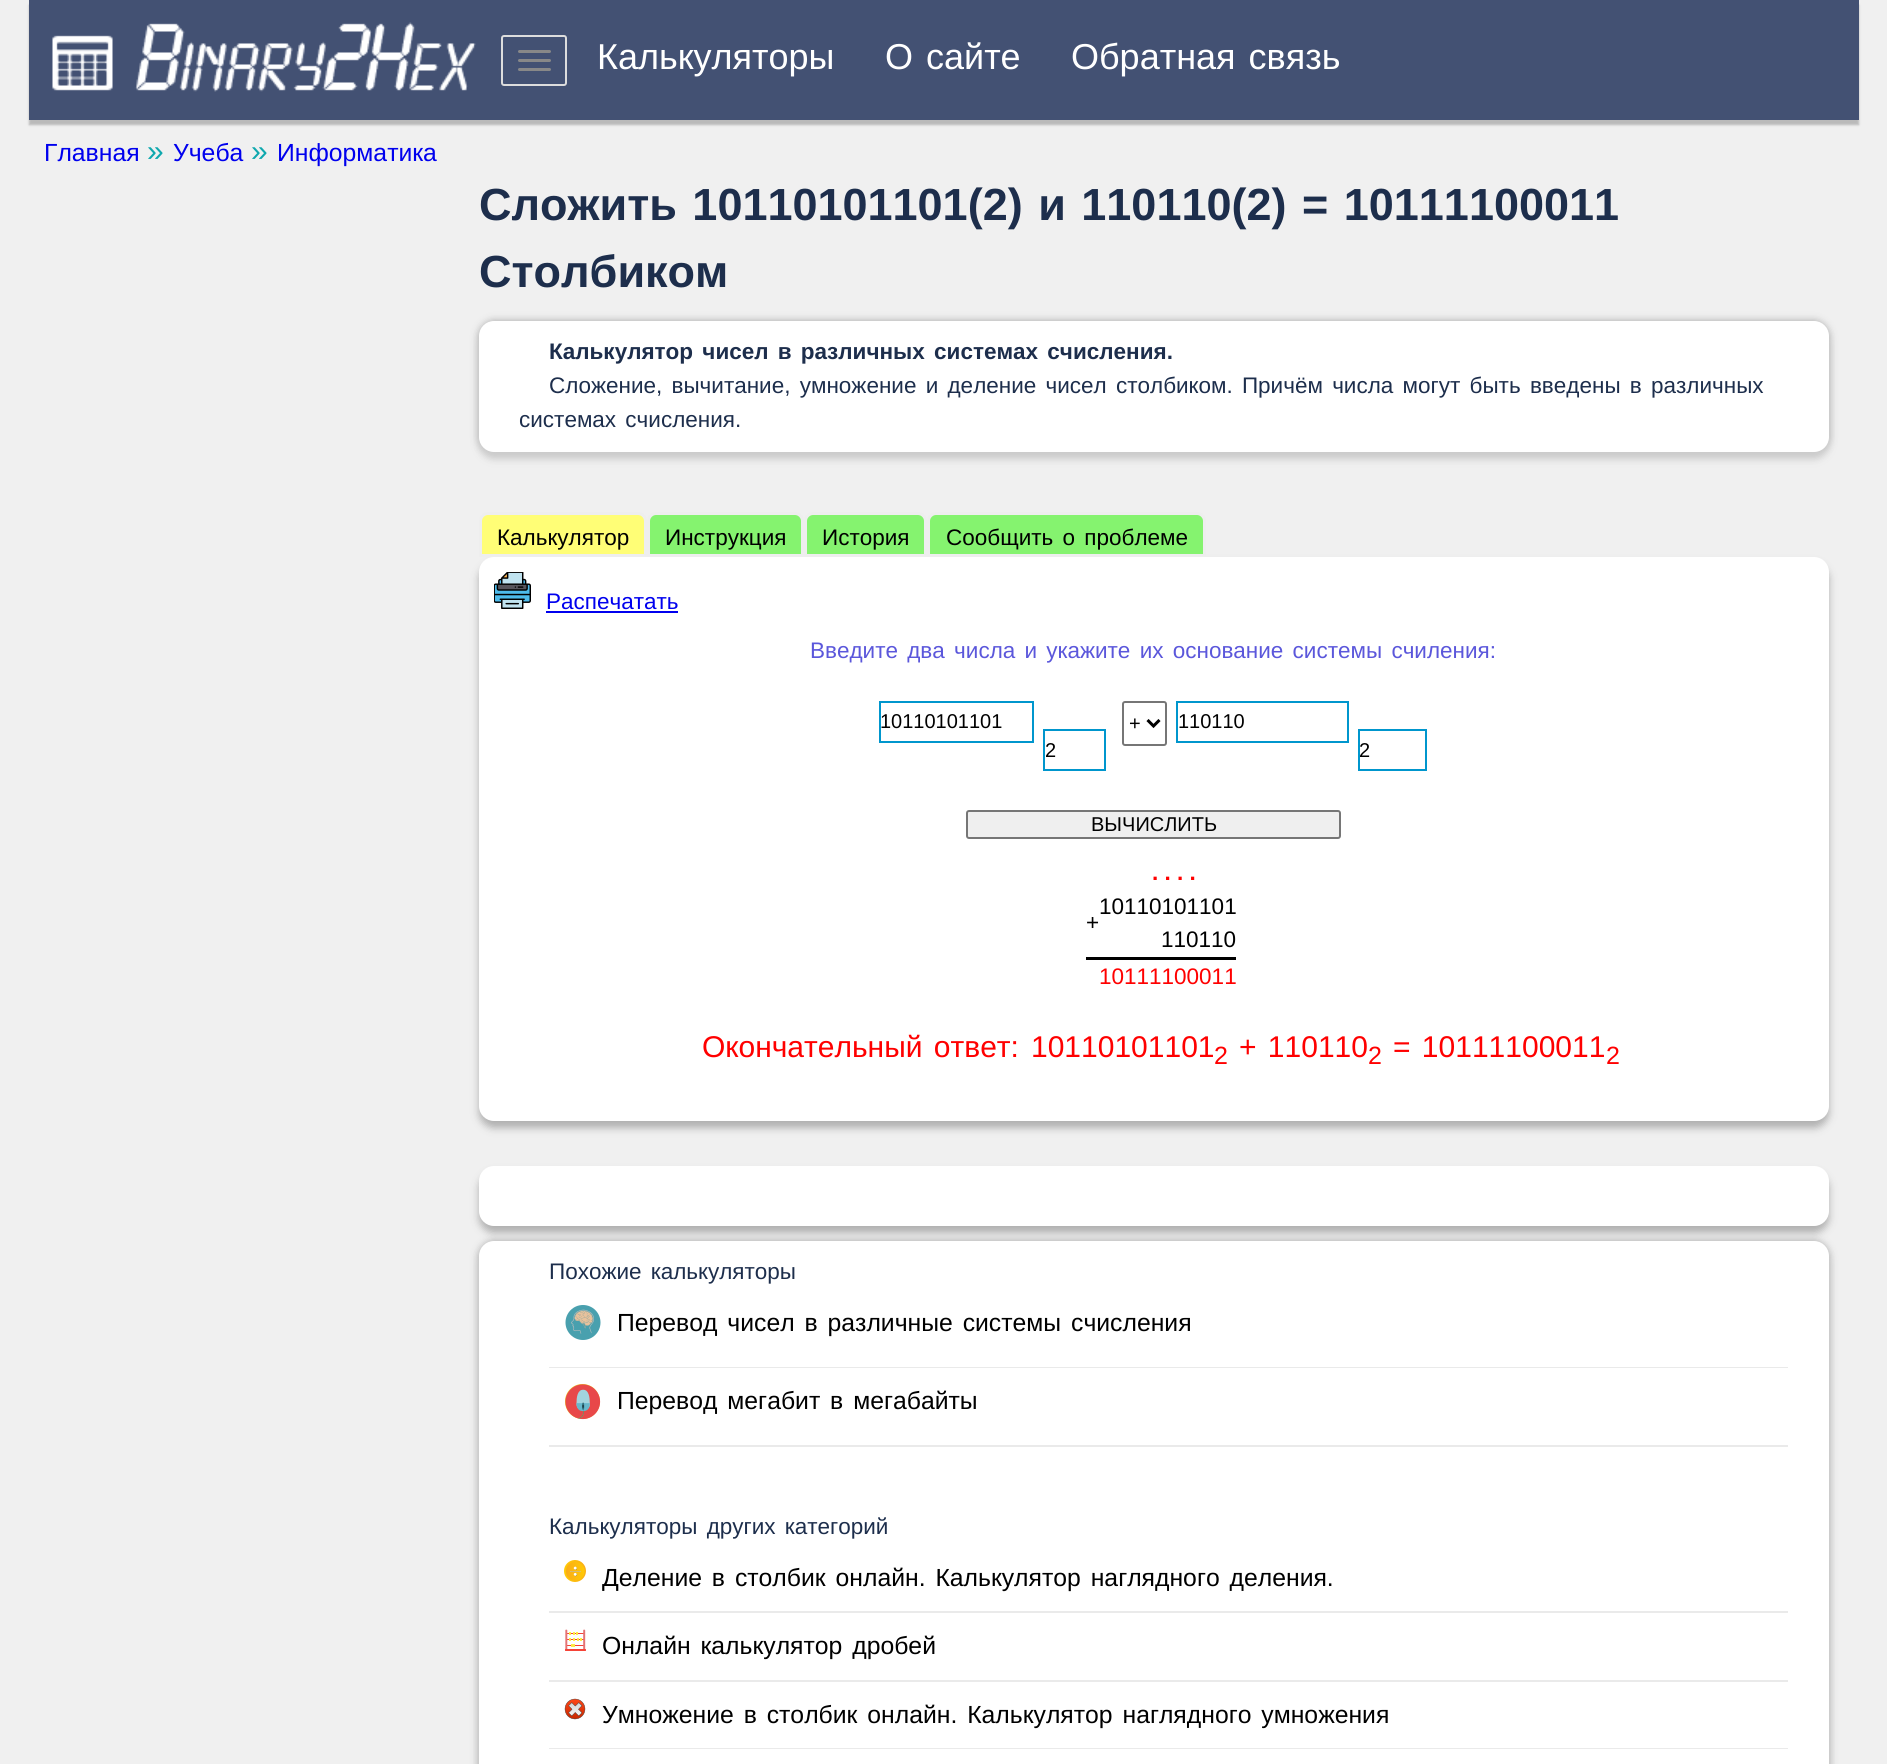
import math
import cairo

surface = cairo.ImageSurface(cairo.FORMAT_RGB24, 1887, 1764)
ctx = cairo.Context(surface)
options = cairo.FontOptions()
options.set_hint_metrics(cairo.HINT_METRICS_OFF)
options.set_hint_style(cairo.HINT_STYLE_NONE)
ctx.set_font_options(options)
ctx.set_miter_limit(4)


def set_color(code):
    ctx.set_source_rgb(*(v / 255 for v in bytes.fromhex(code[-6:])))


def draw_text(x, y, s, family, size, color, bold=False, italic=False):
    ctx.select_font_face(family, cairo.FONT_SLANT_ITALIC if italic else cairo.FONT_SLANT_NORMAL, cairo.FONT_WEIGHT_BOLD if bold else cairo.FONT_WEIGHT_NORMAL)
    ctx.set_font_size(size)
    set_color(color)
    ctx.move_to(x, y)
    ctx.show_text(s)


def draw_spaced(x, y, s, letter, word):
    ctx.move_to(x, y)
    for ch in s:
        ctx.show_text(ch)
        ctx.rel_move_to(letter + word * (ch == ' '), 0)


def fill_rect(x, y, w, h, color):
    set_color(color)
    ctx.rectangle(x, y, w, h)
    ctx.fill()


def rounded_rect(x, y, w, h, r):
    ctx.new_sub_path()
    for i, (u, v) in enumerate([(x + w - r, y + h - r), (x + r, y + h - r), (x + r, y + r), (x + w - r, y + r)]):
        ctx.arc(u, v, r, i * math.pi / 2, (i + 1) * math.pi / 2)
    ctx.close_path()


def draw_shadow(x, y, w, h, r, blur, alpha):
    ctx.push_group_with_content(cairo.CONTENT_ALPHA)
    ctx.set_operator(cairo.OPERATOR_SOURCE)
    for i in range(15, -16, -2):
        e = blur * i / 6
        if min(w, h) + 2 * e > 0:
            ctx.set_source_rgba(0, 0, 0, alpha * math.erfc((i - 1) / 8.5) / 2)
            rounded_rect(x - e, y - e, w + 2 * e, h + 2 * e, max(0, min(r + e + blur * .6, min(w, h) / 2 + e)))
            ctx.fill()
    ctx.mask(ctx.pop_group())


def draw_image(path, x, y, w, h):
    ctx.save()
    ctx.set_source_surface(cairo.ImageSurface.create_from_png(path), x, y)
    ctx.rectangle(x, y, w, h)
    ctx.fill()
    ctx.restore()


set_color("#f0f0f0")
ctx.paint()
set_color("#bababa")
draw_shadow(29, 5, 1830, 120, 0, 1, 1)
fill_rect(29, 0, 1830, 120, "#435173")
draw_image("assets/img1.png", 52, 22, 424, 70)
rounded_rect(502, 36, 64, 49, 2)
set_color("#dddddd")
ctx.stroke()
set_color("#888888")
rounded_rect(518, 50, 33, 3, 1.5)
ctx.fill()
rounded_rect(518, 59, 33, 3, 1.5)
ctx.fill()
rounded_rect(518, 68, 33, 3, 1.5)
ctx.fill()
draw_text(597, 69, "Калькуляторы", "Liberation Sans", 36, "#ffffff")
draw_spaced(885, 69, "О сайте", 0, 3)
draw_spaced(1071, 69, "Обратная связь", 0, 3)
draw_text(44, 161, "Главная", "Liberation Sans", 24.75, "#0000ee")
draw_text(147, 161, "»", "Liberation Sans", 30, "#0fa8ae")
draw_text(173, 161, "Учеба", "Liberation Sans", 24.75, "#0000ee")
draw_text(251, 161, "»", "Liberation Sans", 30, "#0fa8ae")
draw_text(277, 161, "Информатика", "Liberation Sans", 24.75, "#0000ee")
ctx.select_font_face("Liberation Sans", cairo.FONT_SLANT_NORMAL, cairo.FONT_WEIGHT_BOLD)
ctx.set_font_size(45)
set_color("#1d2e4c")
draw_spaced(479, 220, "Сложить 10110101101(2) и 110110(2) = 10111100011", 0, 3)
draw_text(479, 287, "Столбиком", "Liberation Sans", 45, "#1d2e4c", bold=True)
set_color("#a5a5a5")
draw_shadow(479, 321, 1350, 131, 15, 4, 1)
set_color("#cccccc")
draw_shadow(479, 329, 1350, 130, 15, 4, 1)
set_color("#ffffff")
rounded_rect(479, 321, 1350, 131, 15)
ctx.fill()
ctx.set_font_size(22.5)
set_color("#1d2e4c")
draw_spaced(549, 359, "Калькулятор чисел в различных системах счисления.", 0, 3)
ctx.select_font_face("Liberation Sans")
draw_spaced(549, 393, "Сложение, вычитание, умножение и деление чисел столбиком. Причём числа могут быть введены в различных", 0, 3)
draw_spaced(519, 427, "системах счисления.", 0, 3)
set_color("#b0b0b0")
draw_shadow(479, 564, 1350, 564, 15, 4, 1)
set_color("#fffe76")
ctx.new_path()
ctx.move_to(488, 513.5)
ctx.line_to(638, 513.5)
ctx.curve_to(642, 513.5, 645.5, 517, 645.5, 521)
ctx.line_to(645.5, 555.5)
ctx.line_to(480.5, 555.5)
ctx.line_to(480.5, 521)
ctx.curve_to(480.5, 517, 484, 513.5, 488, 513.5)
ctx.close_path()
ctx.fill_preserve()
set_color("#eeeeee")
ctx.set_line_width(3)
ctx.stroke()
draw_text(497, 545, "Калькулятор", "Liberation Sans", 22.5, "#000000")
set_color("#85f36f")
ctx.new_path()
ctx.move_to(656, 513.5)
ctx.line_to(795, 513.5)
ctx.curve_to(799, 513.5, 802.5, 517, 802.5, 521)
ctx.line_to(802.5, 555.5)
ctx.line_to(648.5, 555.5)
ctx.line_to(648.5, 521)
ctx.curve_to(648.5, 517, 652, 513.5, 656, 513.5)
ctx.close_path()
ctx.fill_preserve()
set_color("#eeeeee")
ctx.stroke()
draw_text(665, 545, "Инструкция", "Liberation Sans", 22.5, "#000000")
set_color("#85f36f")
ctx.new_path()
ctx.move_to(813, 513.5)
ctx.line_to(918, 513.5)
ctx.curve_to(922, 513.5, 925.5, 517, 925.5, 521)
ctx.line_to(925.5, 555.5)
ctx.line_to(805.5, 555.5)
ctx.line_to(805.5, 521)
ctx.curve_to(805.5, 517, 809, 513.5, 813, 513.5)
ctx.close_path()
ctx.fill_preserve()
set_color("#eeeeee")
ctx.stroke()
draw_text(822, 545, "История", "Liberation Sans", 22.5, "#000000")
set_color("#85f36f")
ctx.new_path()
ctx.move_to(936, 513.5)
ctx.line_to(1197, 513.5)
ctx.curve_to(1201, 513.5, 1204.5, 517, 1204.5, 521)
ctx.line_to(1204.5, 555.5)
ctx.line_to(928.5, 555.5)
ctx.line_to(928.5, 521)
ctx.curve_to(928.5, 517, 932, 513.5, 936, 513.5)
ctx.close_path()
ctx.fill_preserve()
set_color("#eeeeee")
ctx.stroke()
set_color("#000000")
draw_spaced(946, 545, "Сообщить о проблеме", 0, 3)
set_color("#ffffff")
rounded_rect(479, 557, 1350, 564, 15)
ctx.fill()
draw_image("assets/img2.png", 494, 572, 37, 37)
draw_text(546, 609, "Распечатать", "Liberation Sans", 22.5, "#0000ee")
fill_rect(546, 611, 132, 2, "#0000ee")
set_color("#5b57db")
draw_spaced(810, 658, "Введите два числа и укажите их основание системы счиления:", 0, 3)
ctx.rectangle(880, 702, 153, 40)
set_color("#0096cd")
ctx.set_line_width(2)
ctx.stroke()
draw_text(880, 728, "10110101101", "Liberation Sans", 20, "#000000")
ctx.rectangle(1044, 730, 61, 40)
set_color("#0096cd")
ctx.stroke()
draw_text(1045, 757, "2", "Liberation Sans", 20, "#000000")
rounded_rect(1123, 702, 43, 43, 2)
set_color("#767676")
ctx.stroke()
ctx.new_path()
ctx.move_to(1147.5, 720)
ctx.line_to(1153.5, 726)
ctx.line_to(1159.5, 720)
set_color("#000000")
ctx.set_line_width(3)
ctx.stroke()
draw_text(1129, 730, "+", "Liberation Sans", 20, "#000000")
ctx.rectangle(1177, 702, 171, 40)
set_color("#0096cd")
ctx.set_line_width(2)
ctx.stroke()
draw_text(1178, 728, "110110", "Liberation Sans", 20, "#000000")
ctx.rectangle(1359, 730, 67, 40)
set_color("#0096cd")
ctx.stroke()
draw_text(1359, 757, "2", "Liberation Sans", 20, "#000000")
set_color("#efefef")
rounded_rect(967, 811, 373, 27, 2)
ctx.fill_preserve()
set_color("#767676")
ctx.stroke()
draw_text(1091, 831, "ВЫЧИСЛИТЬ", "Liberation Sans", 20, "#000000")
draw_text(1152, 880, ". . . .", "Liberation Sans", 22.5, "#ff0000", bold=True)
draw_text(1099, 914, "10110101101", "Liberation Sans", 22.5, "#000000")
draw_text(1086, 930, "+", "Liberation Sans", 22.5, "#000000")
draw_text(1161, 947, "110110", "Liberation Sans", 22.5, "#000000")
fill_rect(1086, 957, 150, 3, "#000000")
draw_text(1099, 984, "10111100011", "Liberation Sans", 22.5, "#ff0000")
ctx.set_font_size(30)
draw_spaced(702, 1057, "Окончательный ответ:", 0, 3)
draw_text(1031, 1057, "10110101101", "Liberation Sans", 30, "#ff0000")
draw_text(1214, 1064, "2", "Liberation Sans", 25, "#ff0000")
ctx.set_font_size(30)
draw_spaced(1239, 1057, "+ 110110", 0, 3)
draw_text(1368, 1064, "2", "Liberation Sans", 25, "#ff0000")
ctx.set_font_size(30)
draw_spaced(1393, 1057, "= 10111100011", 0, 3)
draw_text(1606, 1064, "2", "Liberation Sans", 25, "#ff0000")
set_color("#b0b0b0")
draw_shadow(479, 1173, 1350, 60, 15, 4, 1)
set_color("#ffffff")
rounded_rect(479, 1166, 1350, 60, 15)
ctx.fill()
set_color("#a5a5a5")
draw_shadow(479, 1241, 1350, 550, 15, 4, 1)
set_color("#cccccc")
draw_shadow(479, 1248, 1350, 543, 15, 4, 1)
set_color("#ffffff")
rounded_rect(479, 1241, 1350, 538, 15)
ctx.fill()
ctx.set_font_size(22.5)
set_color("#1d2e4c")
draw_spaced(549, 1279, "Похожие калькуляторы", 0, 3)
fill_rect(549, 1367, 1239, 1, "#eaeaea")
draw_image("assets/img3.png", 565, 1305, 36, 35)
ctx.set_font_size(24.75)
set_color("#000000")
draw_spaced(617, 1331, "Перевод чисел в различные системы счисления", 0, 3)
fill_rect(549, 1445, 1239, 2, "#eaeaea")
draw_image("assets/img4.png", 565, 1384, 36, 36)
set_color("#000000")
draw_spaced(617, 1409, "Перевод мегабит в мегабайты", 0, 3)
ctx.set_font_size(22.5)
set_color("#1d2e4c")
draw_spaced(549, 1534, "Калькуляторы других категорий", 0, 3)
fill_rect(549, 1611, 1239, 2, "#eaeaea")
draw_image("assets/img5.png", 564, 1560, 22, 22)
ctx.set_font_size(24.75)
set_color("#000000")
draw_spaced(602, 1586, "Деление в столбик онлайн. Калькулятор наглядного деления.", 0, 3)
fill_rect(549, 1680, 1239, 2, "#eaeaea")
draw_image("assets/img6.png", 565, 1629, 21, 22)
set_color("#000000")
draw_spaced(602, 1654, "Онлайн калькулятор дробей", 0, 3)
fill_rect(549, 1748, 1239, 1, "#eaeaea")
draw_image("assets/img7.png", 564, 1698, 22, 22)
set_color("#000000")
draw_spaced(602, 1723, "Умножение в столбик онлайн. Калькулятор наглядного умножения", 0, 3)
surface.write_to_png("output.png")
